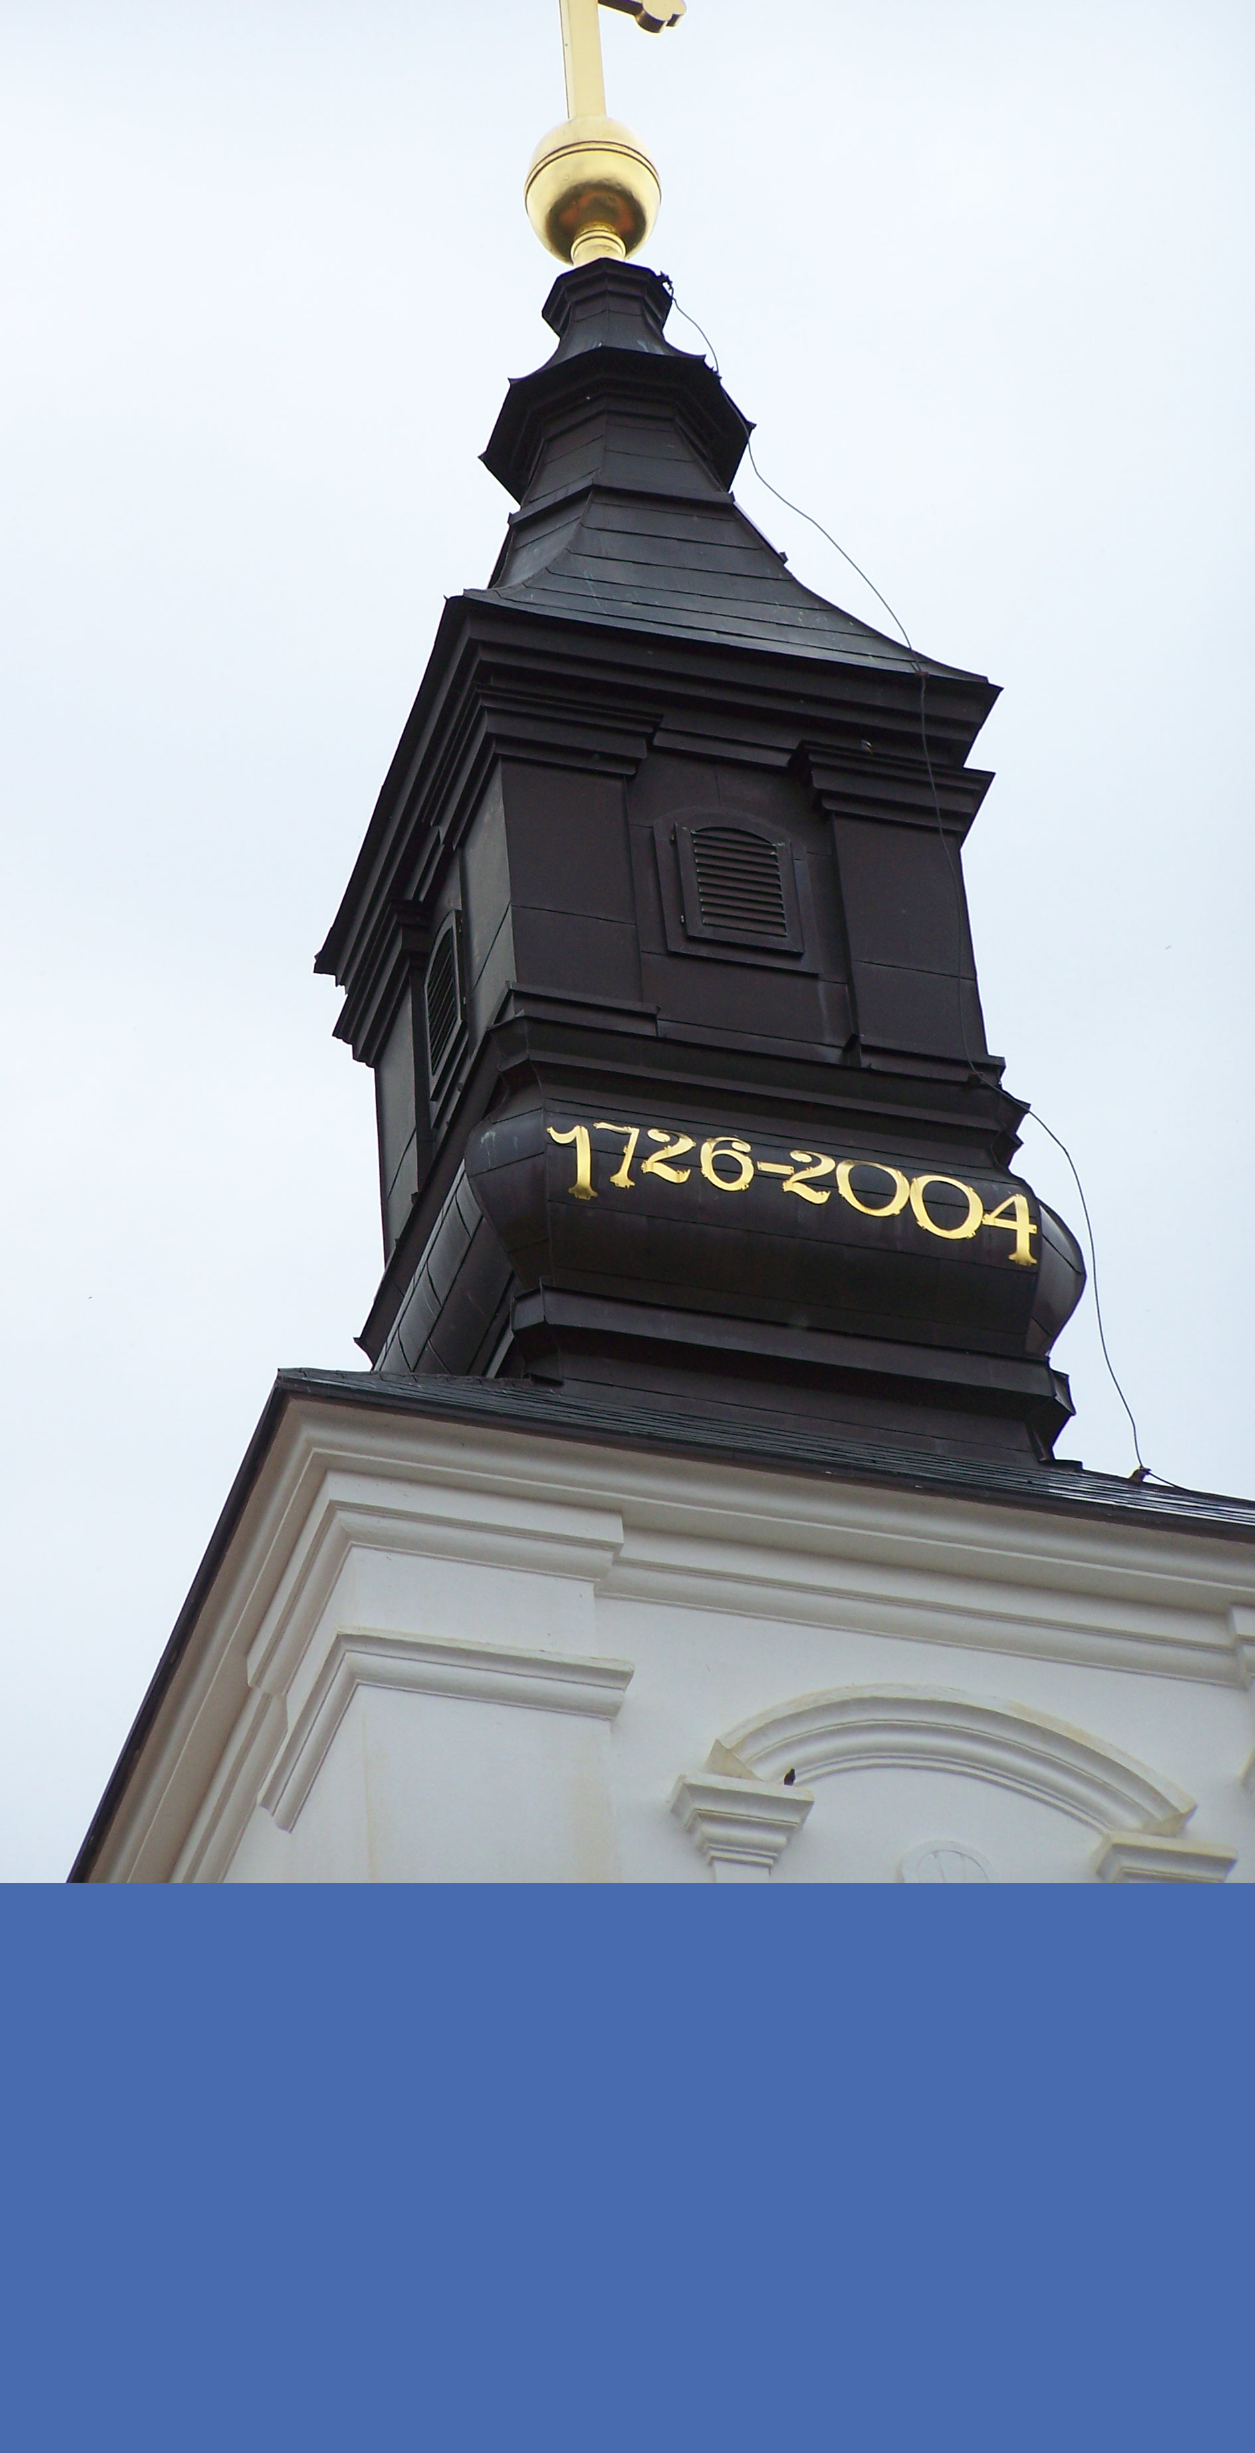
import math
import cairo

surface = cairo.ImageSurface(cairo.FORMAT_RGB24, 1255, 2453)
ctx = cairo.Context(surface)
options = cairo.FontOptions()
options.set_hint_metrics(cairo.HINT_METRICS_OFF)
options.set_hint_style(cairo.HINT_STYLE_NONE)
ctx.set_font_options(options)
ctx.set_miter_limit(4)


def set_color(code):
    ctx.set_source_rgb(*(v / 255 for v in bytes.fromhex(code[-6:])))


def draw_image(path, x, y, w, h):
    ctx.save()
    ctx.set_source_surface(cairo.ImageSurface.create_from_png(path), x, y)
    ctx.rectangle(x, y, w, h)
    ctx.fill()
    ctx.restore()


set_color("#486baf")
ctx.paint()
draw_image("assets/img1.png", 0, 0, 1255, 1883)
surface.write_to_png("output.png")
